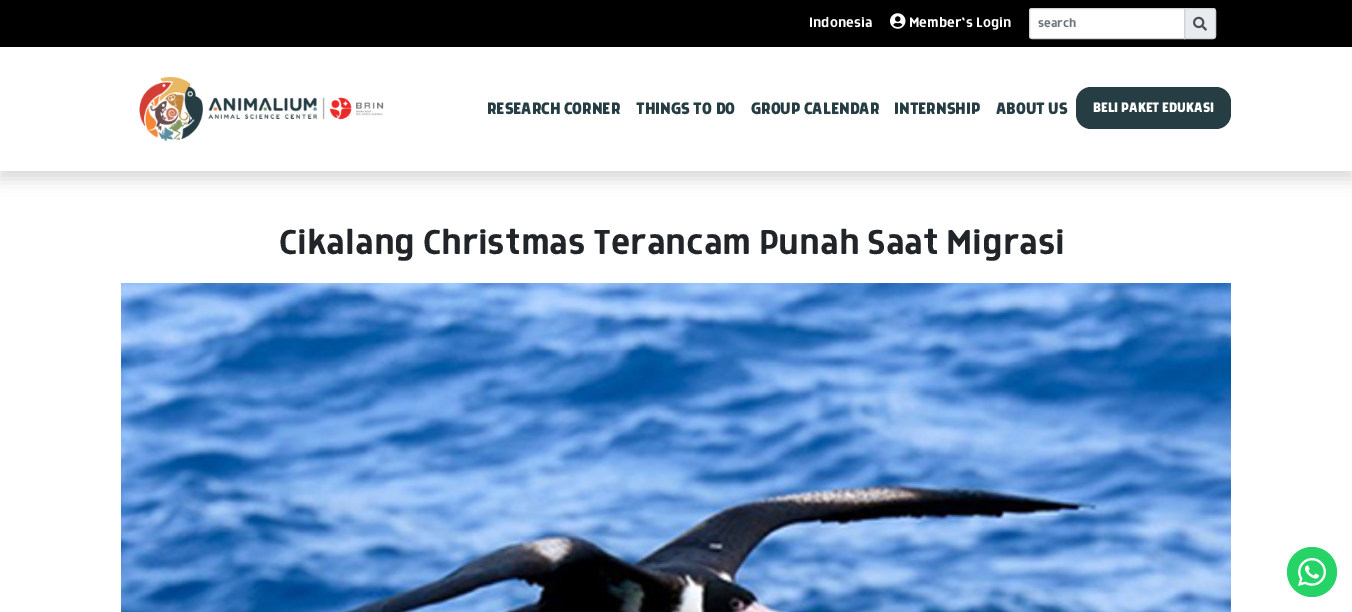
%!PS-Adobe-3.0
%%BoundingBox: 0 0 1352 612
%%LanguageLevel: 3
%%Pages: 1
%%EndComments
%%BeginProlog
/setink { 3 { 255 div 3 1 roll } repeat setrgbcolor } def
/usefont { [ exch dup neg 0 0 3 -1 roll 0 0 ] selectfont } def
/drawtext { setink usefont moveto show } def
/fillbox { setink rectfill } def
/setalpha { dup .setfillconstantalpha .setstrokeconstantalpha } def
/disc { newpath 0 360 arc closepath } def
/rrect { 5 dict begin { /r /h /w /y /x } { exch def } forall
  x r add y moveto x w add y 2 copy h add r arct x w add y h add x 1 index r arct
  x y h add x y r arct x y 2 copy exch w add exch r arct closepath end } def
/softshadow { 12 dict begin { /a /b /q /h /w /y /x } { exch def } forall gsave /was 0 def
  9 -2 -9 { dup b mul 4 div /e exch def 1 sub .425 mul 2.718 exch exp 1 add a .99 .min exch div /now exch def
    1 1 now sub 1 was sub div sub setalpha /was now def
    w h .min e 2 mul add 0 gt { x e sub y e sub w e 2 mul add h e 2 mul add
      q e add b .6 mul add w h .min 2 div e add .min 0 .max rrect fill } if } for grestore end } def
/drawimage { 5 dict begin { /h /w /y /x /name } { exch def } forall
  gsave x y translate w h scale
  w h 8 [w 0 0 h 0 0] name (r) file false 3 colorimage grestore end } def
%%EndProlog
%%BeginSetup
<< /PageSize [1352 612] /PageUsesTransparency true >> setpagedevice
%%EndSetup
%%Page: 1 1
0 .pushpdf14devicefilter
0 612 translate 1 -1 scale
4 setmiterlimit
0 0 1352 612 255 255 255 fillbox
0 0 1352 47 0 0 0 fillbox
(Indonesia) 809 27 /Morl-Regular 16 255 255 255 drawtext
(assets/img1.rgb) 890 13 16 16 drawimage
(Member`s Login) 909 27 /Morl-Regular 16 255 255 255 drawtext
233 236 239 setink
1184.5 8.5 moveto 1213 8.5 lineto 1214.5 8.5 1215.5 9.5 1215.5 11 curveto 1215.5 36 lineto 1215.5 37.5 1214.5 38.5 1213 38.5 curveto 1184.5 38.5 lineto closepath gsave fill grestore
206 212 218 setink
stroke
255 255 255 setink
1032 8.5 moveto 1184.5 8.5 lineto 1184.5 38.5 lineto 1032 38.5 lineto 1030.5 38.5 1029.5 37.5 1029.5 36 curveto 1029.5 11 lineto 1029.5 9.5 1030.5 8.5 1032 8.5 curveto closepath gsave fill grestore
206 212 218 setink
stroke
(search) 1038 27 /Morl-Regular 14 108 117 125 drawtext
(assets/img2.rgb) 1193 16 14 15 drawimage
gsave
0 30 moveto 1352 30 lineto 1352 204 lineto 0 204 lineto closepath 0 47 moveto 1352 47 lineto 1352 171 lineto 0 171 lineto closepath eoclip newpath
0 0 0 setink
0 55 1352 124 0 8 0.15 softshadow
grestore
(assets/img3.rgb) 139 76 245 66 drawimage
(RESEARCH CORNER) 487 114 /Morl-Bold 19.25 37 61 67 drawtext
(THINGS TO DO) 636 114 /Morl-Bold 19.25 37 61 67 drawtext
(GROUP CALENDAR) 751 114 /Morl-Bold 19.25 37 61 67 drawtext
(INTERNSHIP) 894 114 /Morl-Bold 19.25 37 61 67 drawtext
(ABOUT US) 996 114 /Morl-Bold 19.25 37 61 67 drawtext
1076 87 155 42 15 rrect fill
(BELI PAKET EDUKASI) 1093 112 /Morl-Bold 16 255 255 255 drawtext
(Cikalang Christmas Terancam Punah Saat Migrasi) 279 254 /Morl-Regular 40 33 37 41 drawtext
(assets/img4.rgb) 121 283 1110 329 drawimage
37 211 102 setink
1312 572 25 disc fill
(assets/img5.rgb) 1298 558 28 28 drawimage
.poppdf14devicefilter showpage
%%EOF
